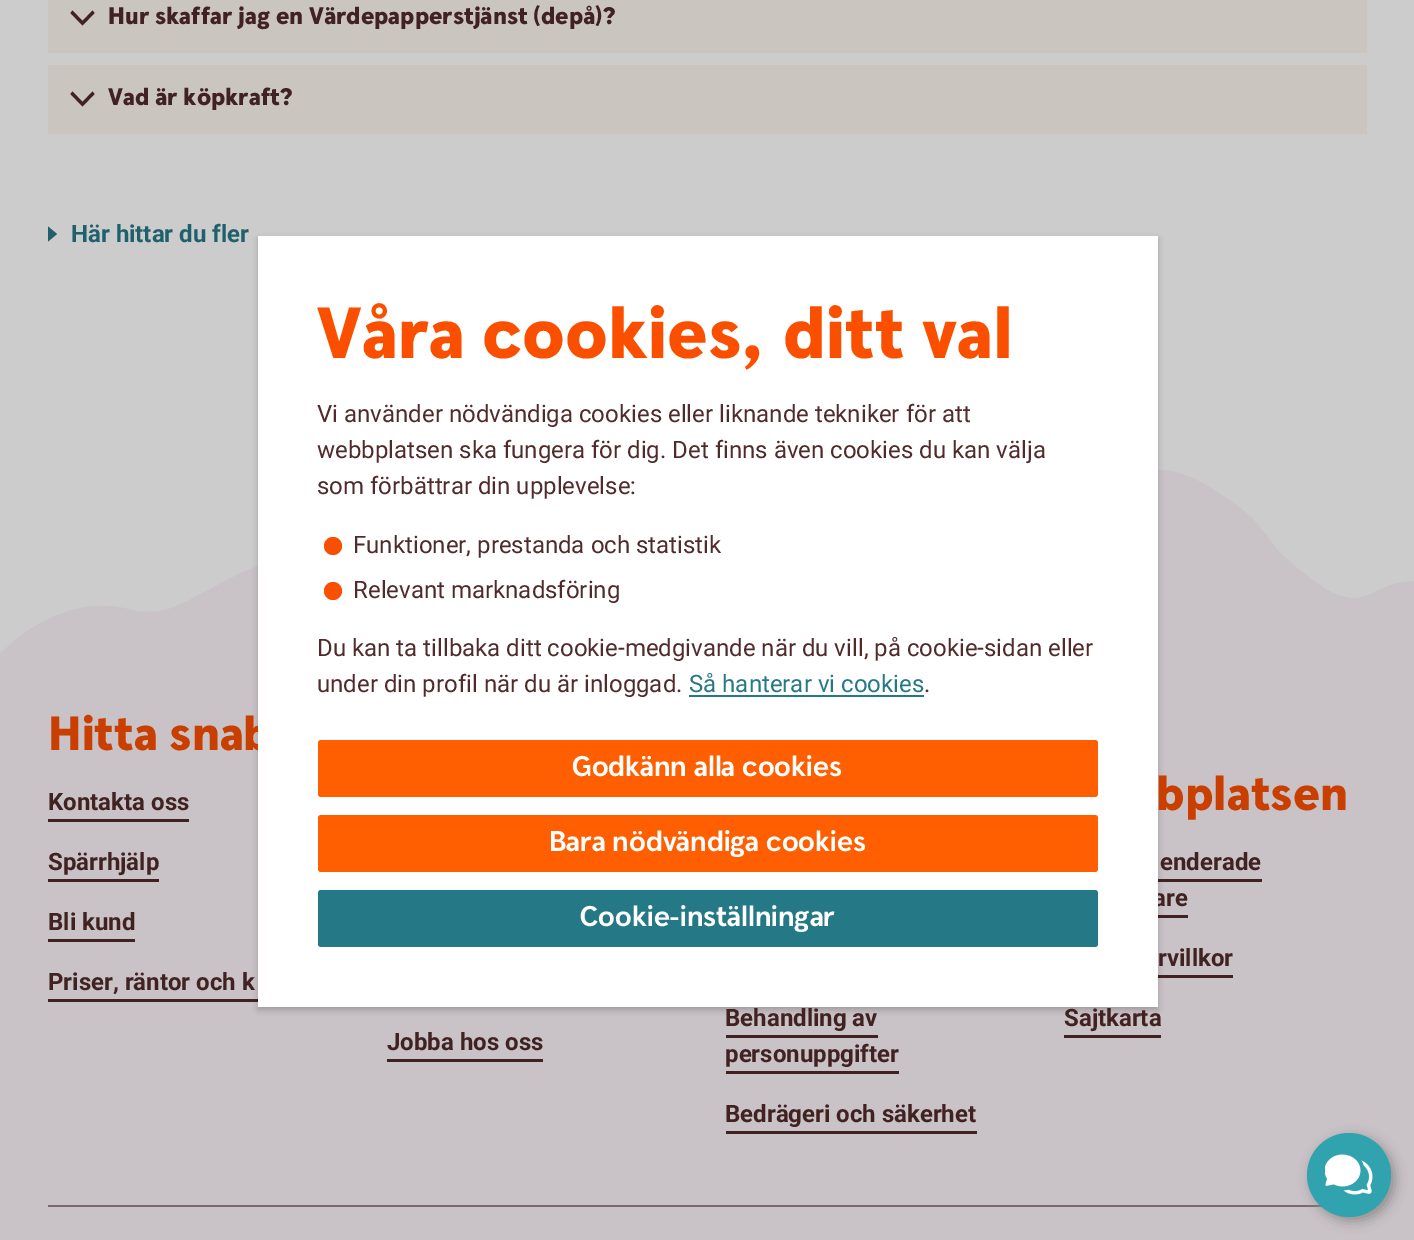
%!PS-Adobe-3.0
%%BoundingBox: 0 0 1414 1240
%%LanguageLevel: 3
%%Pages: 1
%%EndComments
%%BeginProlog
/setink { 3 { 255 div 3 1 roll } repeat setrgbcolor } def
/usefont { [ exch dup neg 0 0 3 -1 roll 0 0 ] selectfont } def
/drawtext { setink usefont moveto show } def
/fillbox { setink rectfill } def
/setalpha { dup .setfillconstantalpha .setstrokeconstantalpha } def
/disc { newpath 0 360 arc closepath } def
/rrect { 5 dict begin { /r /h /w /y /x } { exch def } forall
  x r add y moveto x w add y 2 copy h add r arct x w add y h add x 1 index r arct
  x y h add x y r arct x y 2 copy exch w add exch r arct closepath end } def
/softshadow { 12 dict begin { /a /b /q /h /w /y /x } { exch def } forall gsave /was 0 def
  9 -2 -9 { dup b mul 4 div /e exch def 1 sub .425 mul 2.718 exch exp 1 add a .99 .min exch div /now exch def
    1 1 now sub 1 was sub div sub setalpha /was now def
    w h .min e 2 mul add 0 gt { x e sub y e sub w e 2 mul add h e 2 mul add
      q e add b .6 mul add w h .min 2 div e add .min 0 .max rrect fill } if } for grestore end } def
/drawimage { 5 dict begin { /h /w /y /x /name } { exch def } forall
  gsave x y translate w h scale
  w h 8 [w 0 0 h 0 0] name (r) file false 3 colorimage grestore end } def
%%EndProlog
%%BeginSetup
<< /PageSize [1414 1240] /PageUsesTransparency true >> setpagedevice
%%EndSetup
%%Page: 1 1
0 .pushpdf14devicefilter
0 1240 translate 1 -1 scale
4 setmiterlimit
0 0 1414 1240 204 204 204 fillbox
48 0 1319 53 202 197 190 fillbox
65 34 34 setink
82.5 25.5 moveto 70.5 13 lineto 72.5 10.5 lineto 82.5 21 lineto 92.5 10.5 lineto 94.5 13 lineto closepath fill
(Hur skaffar jag en Värdepapperstjänst \(depå\)?) 108 24 /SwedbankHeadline-Black 24 65 34 34 drawtext
48 65 1319 69 202 197 190 fillbox
65 34 34 setink
82.5 106.5 moveto 70.5 94 lineto 72.5 91.5 lineto 82.5 102 lineto 92.5 91.5 lineto 94.5 94 lineto closepath fill
(Vad är köpkraft?) 108 105 /SwedbankHeadline-Black 24 65 34 34 drawtext
30 96 107 setink
57 234 moveto 48 241.5 lineto 48 226.5 lineto closepath fill
(Här hittar du fler) 71 242 /Roboto-Bold 24 30 96 107 drawtext
(assets/img1.rgb) 0 470 1414 189 drawimage
0 659 1414 581 201 194 198 fillbox
48 999 210 3 65 34 34 fillbox
1158 879 104 3 65 34 34 fillbox
1158 915 30 3 65 34 34 fillbox
1158 975 75 3 65 34 34 fillbox
0 0 0 setink
258 239 900 771 0 3 0.2 softshadow
(Hitta snab) 48 750 /SwedbankHeadline-Black 48 201 63 0 drawtext
(are) 1153 906 /Roboto-Bold 24 65 34 34 drawtext
258 236 900 771 255 255 255 fillbox
(Våra cookies, ditt val) 317 358 /SwedbankHeadline-Black 72 251 79 0 drawtext
(Vi använder nödvändiga cookies eller liknande tekniker för att) 317 422 /Roboto-Regular 24 81 43 43 drawtext
(webbplatsen ska fungera för dig. Det finns även cookies du kan välja) 317 458 /Roboto-Regular 24 81 43 43 drawtext
(som förbättrar din upplevelse:) 317 494 /Roboto-Regular 24 81 43 43 drawtext
251 79 0 setink
333 546 9 disc fill
(Funktioner, prestanda och statistik) 353 553 /Roboto-Regular 24 81 43 43 drawtext
251 79 0 setink
333 591 9 disc fill
(Relevant marknadsföring) 353 598 /Roboto-Regular 24 81 43 43 drawtext
(Du kan ta tillbaka ditt cookie-medgivande när du vill, på cookie-sidan eller) 317 656 /Roboto-Regular 24 81 43 43 drawtext
(under din profil när du är inloggad.) 317 692 /Roboto-Regular 24 81 43 43 drawtext
(Så hanterar vi cookies) 689 692 /Roboto-Regular 24 37 120 134 drawtext
689 695 235 2 37 120 134 fillbox
(.) 924 692 /Roboto-Regular 24 81 43 43 drawtext
255 95 0 setink
318 740 780 57 3 rrect fill
(Godkänn alla cookies) 572 776 /SwedbankHeadline-Bold 28.5 255 255 255 drawtext
255 95 0 setink
318 815 780 57 3 rrect fill
(Bara nödvändiga cookies) 549 851 /SwedbankHeadline-Bold 28.5 255 255 255 drawtext
37 120 134 setink
318 890 780 57 3 rrect fill
(Cookie-inställningar) 580 926 /SwedbankHeadline-Bold 28.5 255 255 255 drawtext
(Kontakta oss) 48 810 /Roboto-Bold 24 65 34 34 drawtext
48 819 141 3 65 34 34 fillbox
(Spärrhjälp) 48 870 /Roboto-Bold 24 65 34 34 drawtext
48 879 111 3 65 34 34 fillbox
(Bli kund) 48 930 /Roboto-Bold 24 65 34 34 drawtext
48 939 87 3 65 34 34 fillbox
(Priser, räntor och k) 48 990 /Roboto-Bold 24 65 34 34 drawtext
(bplatsen) 1156 810 /SwedbankHeadline-Black 48 201 63 0 drawtext
(enderade) 1160 870 /Roboto-Bold 24 65 34 34 drawtext
(rvillkor) 1158 966 /Roboto-Bold 24 65 34 34 drawtext
(Sajtkarta) 1064 1026 /Roboto-Bold 24 65 34 34 drawtext
1064 1035 97 3 65 34 34 fillbox
(Jobba hos oss) 387 1050 /Roboto-Bold 24 65 34 34 drawtext
387 1059 156 3 65 34 34 fillbox
(Behandling av) 725 1026 /Roboto-Bold 24 65 34 34 drawtext
726 1035 152 3 65 34 34 fillbox
(personuppgifter) 725 1062 /Roboto-Bold 24 65 34 34 drawtext
726 1071 173 3 65 34 34 fillbox
(Bedrägeri och säkerhet) 725 1122 /Roboto-Bold 24 65 34 34 drawtext
726 1131 251 3 65 34 34 fillbox
48 1205 1274 2 125 105 106 fillbox
144 142 142 setink
1311 1137 84 84 42 6 1 softshadow
49 163 174 setink
1349 1175 42 disc fill
(assets/img2.rgb) 1325 1154 48 41 drawimage
.poppdf14devicefilter showpage
%%EOF
